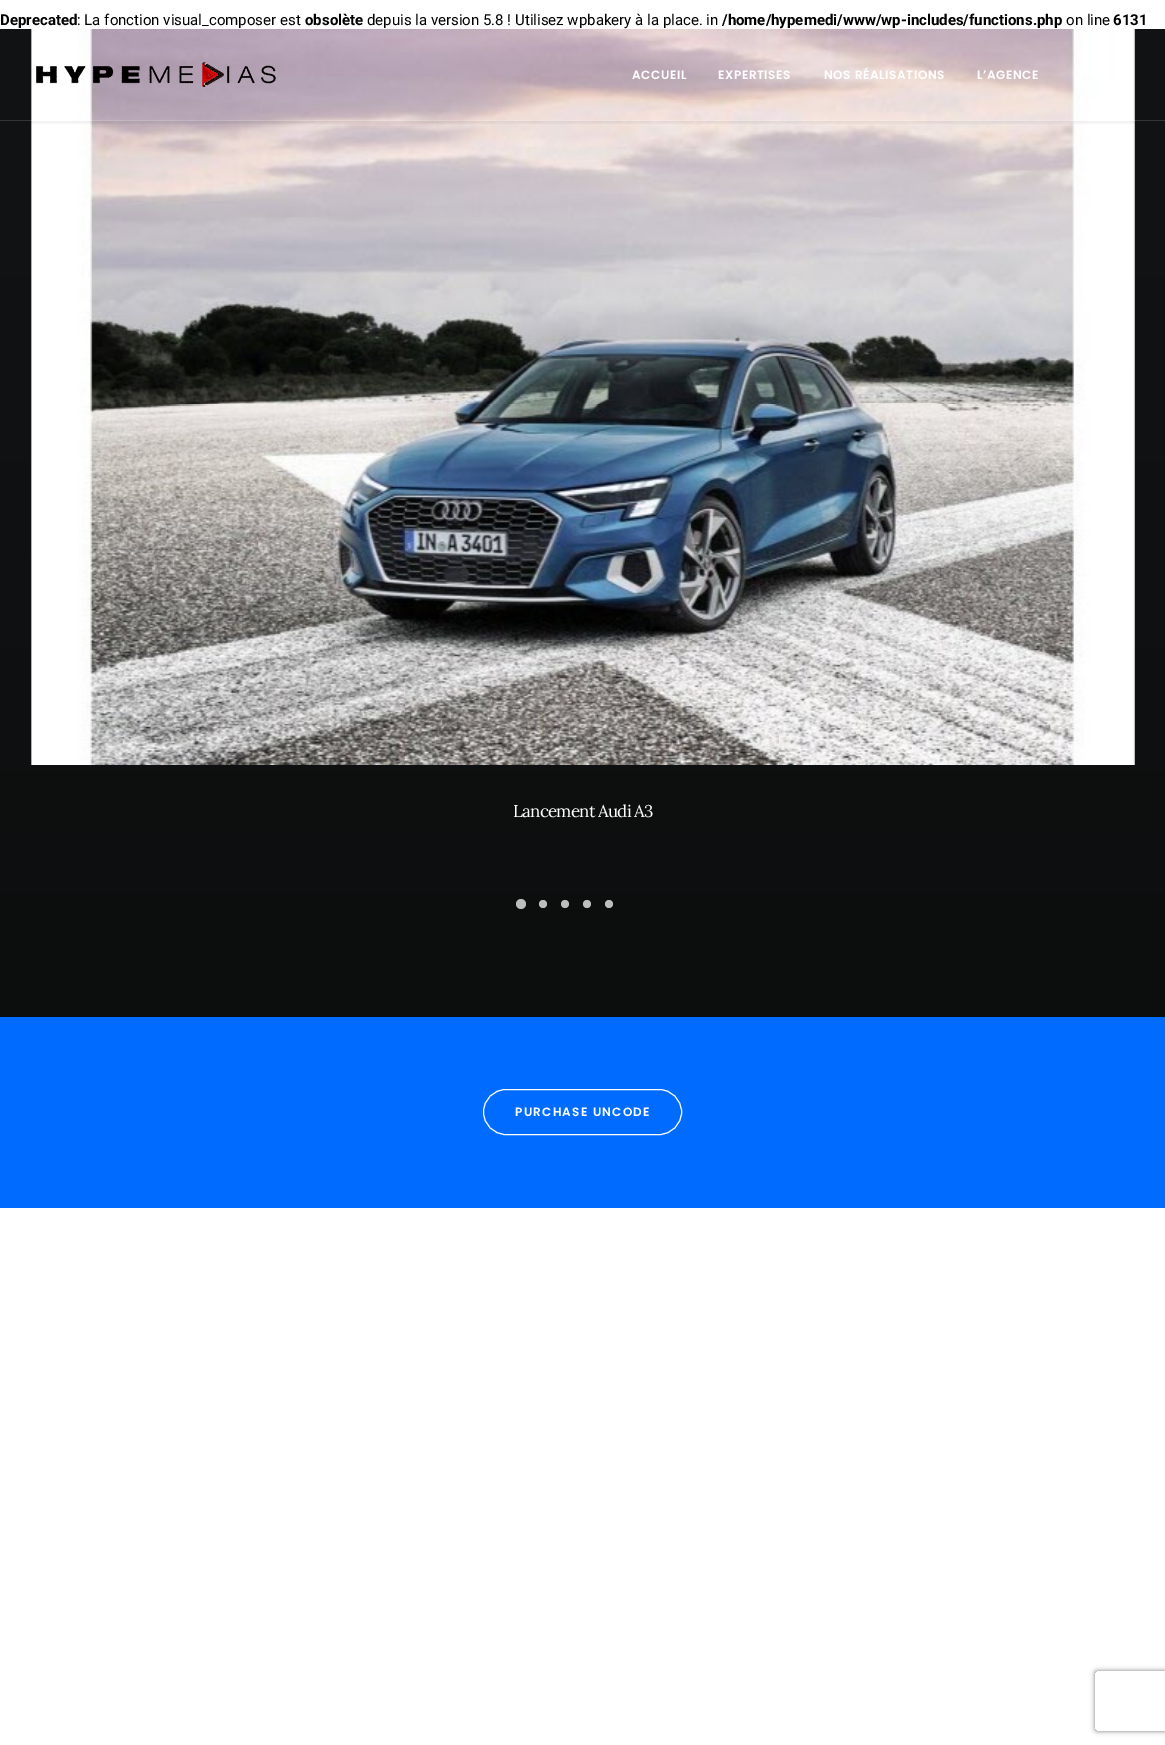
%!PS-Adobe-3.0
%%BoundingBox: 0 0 1165 1745
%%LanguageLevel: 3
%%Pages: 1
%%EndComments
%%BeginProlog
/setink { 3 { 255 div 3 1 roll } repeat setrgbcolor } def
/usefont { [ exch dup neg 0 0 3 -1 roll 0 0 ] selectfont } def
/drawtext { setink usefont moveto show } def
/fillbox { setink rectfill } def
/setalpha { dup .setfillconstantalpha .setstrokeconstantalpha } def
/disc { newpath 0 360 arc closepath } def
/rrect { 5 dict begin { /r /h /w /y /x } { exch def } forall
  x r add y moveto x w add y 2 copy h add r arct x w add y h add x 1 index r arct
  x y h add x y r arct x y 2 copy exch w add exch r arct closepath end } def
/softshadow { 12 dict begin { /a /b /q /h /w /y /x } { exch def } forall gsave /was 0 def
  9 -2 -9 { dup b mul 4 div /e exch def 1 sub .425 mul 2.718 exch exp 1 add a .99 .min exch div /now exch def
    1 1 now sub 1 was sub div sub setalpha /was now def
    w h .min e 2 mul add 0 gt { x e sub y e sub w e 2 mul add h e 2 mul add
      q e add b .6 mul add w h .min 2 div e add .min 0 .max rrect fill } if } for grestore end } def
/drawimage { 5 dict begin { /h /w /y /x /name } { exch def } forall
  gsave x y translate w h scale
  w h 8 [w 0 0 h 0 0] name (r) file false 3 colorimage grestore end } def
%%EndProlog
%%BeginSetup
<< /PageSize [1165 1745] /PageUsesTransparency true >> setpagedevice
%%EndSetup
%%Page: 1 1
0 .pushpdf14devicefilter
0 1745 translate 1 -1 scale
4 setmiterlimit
0 0 1165 1745 255 255 255 fillbox
(Deprecated) 0 25 /Roboto-Bold 15 0 0 0 drawtext
(: La fonction visual_composer est) 77 25 /Roboto-Regular 15 0 0 0 drawtext
(obsolète) 305 25 /Roboto-Bold 15 0 0 0 drawtext
(depuis la version 5.8 ! Utilisez wpbakery à la place. in) 367 25 /Roboto-Regular 15 0 0 0 drawtext
(/home/hypemedi/www/wp-includes/functions.php) 722 25 /Roboto-Bold 15 0 0 0 drawtext
(on line) 1066 25 /Roboto-Regular 15 0 0 0 drawtext
(6131) 1113 25 /Roboto-Bold 15 0 0 0 drawtext
0 29 1165 248 16 18 19 fillbox
gsave 0 277 moveto 1165 277 lineto 1165 1017 lineto 0 1017 lineto closepath clip newpath
<< /ShadingType 2 /ColorSpace /DeviceRGB /Coords [583 277 583 1018] /Extend [true true] /Function << /FunctionType 2 /Domain [0 1] /C0 [0.063 0.071 0.075] /C1 [0.047 0.055 0.055] /N 1 >> >> shfill grestore
(assets/img2.rgb) 31 29 1104 736 drawimage
gsave
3 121 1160 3 rectclip
0 0 0 setink
5 43 1156 72 0 5 0.6 softshadow
grestore
0.15 setalpha
0 120 1165 1 255 255 255 fillbox
1 setalpha
(assets/img1.rgb) 36 62 240 25 drawimage
/Poppins-SemiBold 12 usefont
632 79 moveto 0.6 0 (ACCUEIL) ashow
718 79 moveto 0.6 0 (EXPERTISES) ashow
824 79 moveto 0.6 0 (NOS RÉALISATIONS) ashow
977 79 moveto 0.6 0 (L’AGENCE) ashow
/Lora-Regular 17 usefont
513 817 moveto -0.8 0 (Lancement Audi A3) ashow
188 189 189 setink
521 904 5 disc fill
543 904 4 disc fill
565 904 4 disc fill
587 904 4 disc fill
609 904 4 disc fill
0 1017 1165 191 0 108 255 fillbox
255 255 255 setink
483.5 1089.5 198 45 22.5 rrect stroke
/Poppins-SemiBold 12 usefont
515 1116 moveto 1.25 0 (PURCHASE UNCODE) ashow
gsave
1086 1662 moveto 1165 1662 lineto 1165 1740 lineto 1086 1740 lineto closepath 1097 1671 moveto 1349 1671 lineto 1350 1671 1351 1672 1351 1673 curveto 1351 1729 lineto 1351 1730 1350 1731 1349 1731 curveto 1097 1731 lineto 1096 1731 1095 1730 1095 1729 curveto 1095 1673 lineto 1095 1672 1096 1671 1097 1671 curveto closepath eoclip newpath
128 128 128 setink
1095 1671 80 60 2 2.5 1 softshadow
grestore
.poppdf14devicefilter showpage
%%EOF
